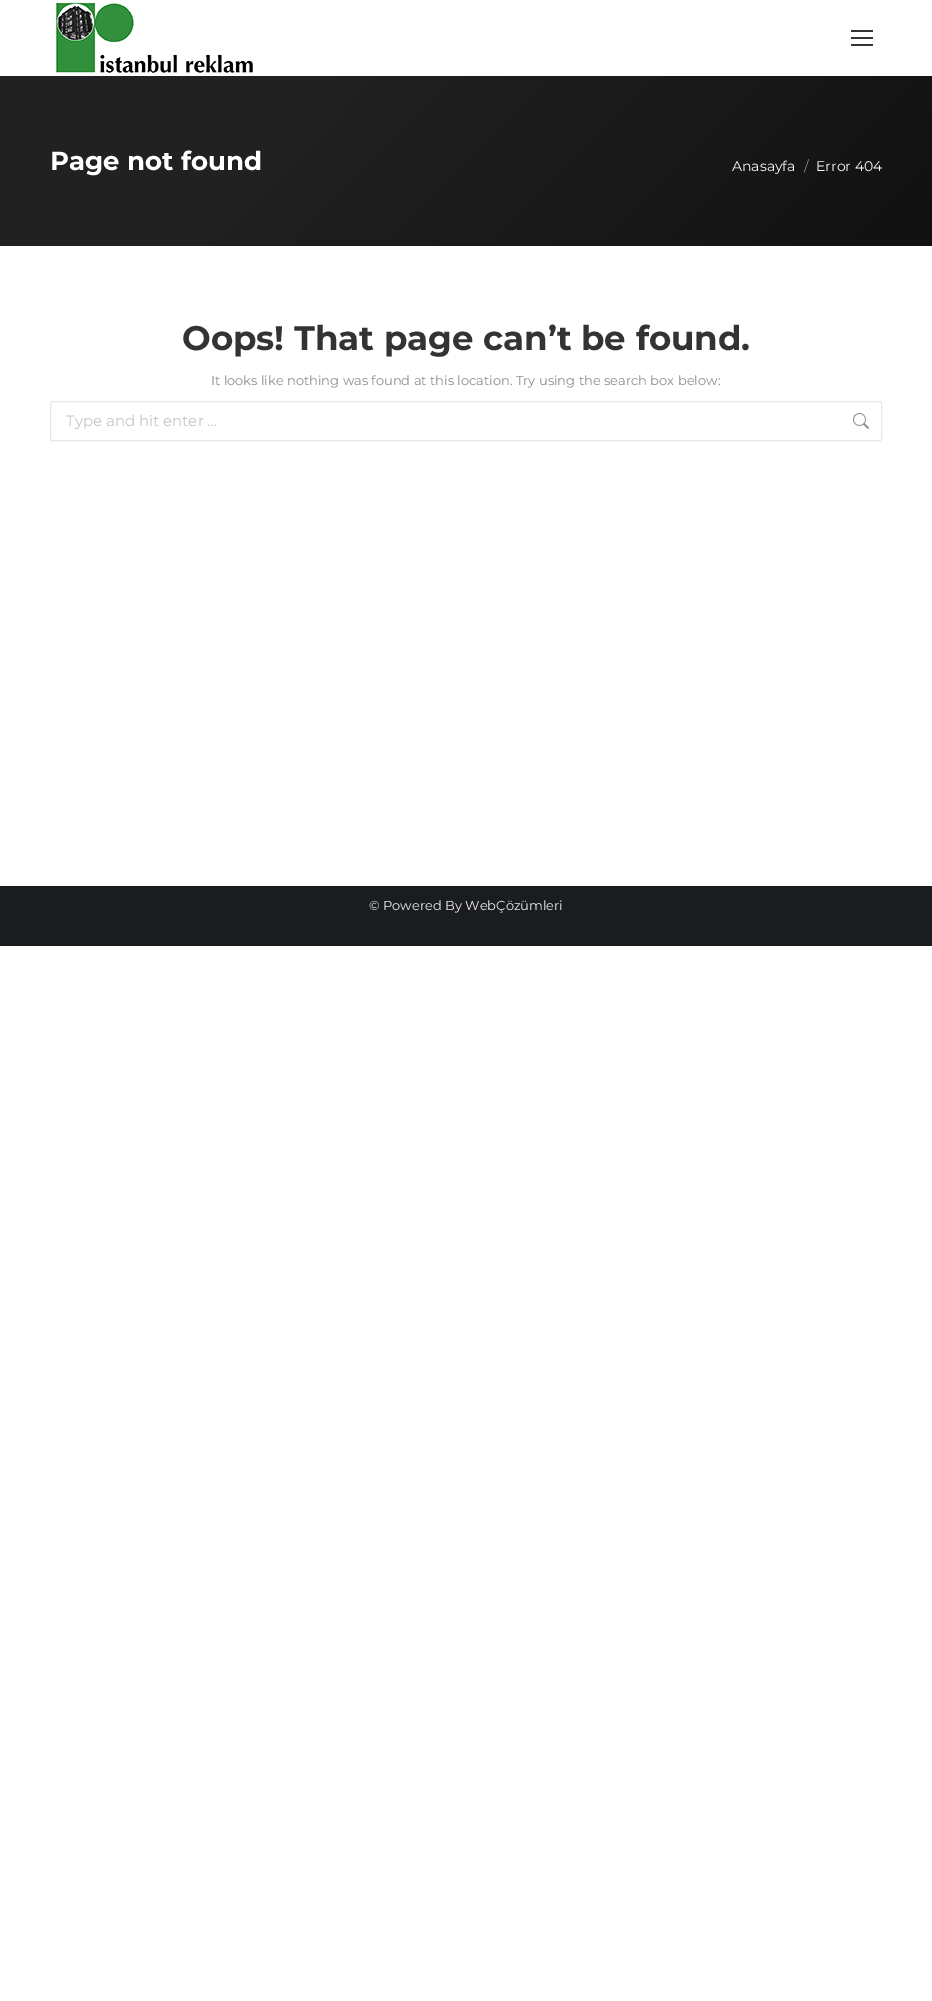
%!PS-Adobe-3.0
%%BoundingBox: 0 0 932 2001
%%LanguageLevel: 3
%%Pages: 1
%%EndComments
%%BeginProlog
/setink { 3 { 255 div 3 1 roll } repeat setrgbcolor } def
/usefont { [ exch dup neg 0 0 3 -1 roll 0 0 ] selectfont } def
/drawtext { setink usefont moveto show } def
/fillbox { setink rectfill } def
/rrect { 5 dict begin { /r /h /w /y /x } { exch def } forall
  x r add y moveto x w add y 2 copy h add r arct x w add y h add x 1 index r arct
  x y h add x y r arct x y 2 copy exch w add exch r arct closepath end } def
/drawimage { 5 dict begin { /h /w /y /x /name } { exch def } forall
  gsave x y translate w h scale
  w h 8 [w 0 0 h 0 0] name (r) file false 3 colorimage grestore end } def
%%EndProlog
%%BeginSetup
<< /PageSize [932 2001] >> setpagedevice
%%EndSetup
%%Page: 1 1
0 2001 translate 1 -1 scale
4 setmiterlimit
0 0 932 2001 255 255 255 fillbox
(assets/img1.rgb) 56 2 197 71 drawimage
851 30 22 2 51 51 51 fillbox
851 37 22 2 51 51 51 fillbox
851 44 22 2 51 51 51 fillbox
gsave 0 76 moveto 932 76 lineto 932 246 lineto 0 246 lineto closepath clip newpath
<< /ShadingType 2 /ColorSpace /DeviceRGB /Coords [190 -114 742 437] /Extend [true true] /Function << /FunctionType 3 /Domain [0 1] /Functions [<< /FunctionType 2 /Domain [0 1] /C0 [0.129 0.129 0.129] /C1 [0.129 0.129 0.129] /N 1 >> << /FunctionType 2 /Domain [0 1] /C0 [0.129 0.129 0.129] /C1 [0.067 0.067 0.067] /N 1 >>] /Bounds [0.3] /Encode [0 1 0 1] >> >> shfill grestore
(Page not found) 50 170 /Montserrat-Bold 26 255 255 255 drawtext
(Anasayfa) 732 171 /Montserrat-Regular 14 255 247 247 drawtext
(/) 804 171 /Montserrat-Regular 14 138 134 134 drawtext
(Error 404) 816 171 /Montserrat-Regular 14 255 247 247 drawtext
(Oops! That page can’t be found.) 182 350 /Montserrat-Bold 34 51 51 51 drawtext
(It looks like nothing was found at this location. Try using the search box below:) 211 385 /Montserrat-Regular 13 139 141 148 drawtext
231 231 231 setink
50.5 401.5 831 39 1.5 rrect stroke
(Type and hit enter …) 66 426 /Montserrat-Regular 15 196 197 201 drawtext
(assets/img2.rgb) 853 413 16 16 drawimage
0 886 932 60 26 28 32 fillbox
(© Powered By WebÇözümleri) 369 910 /Montserrat-Regular 13 238 238 238 drawtext
showpage
%%EOF
